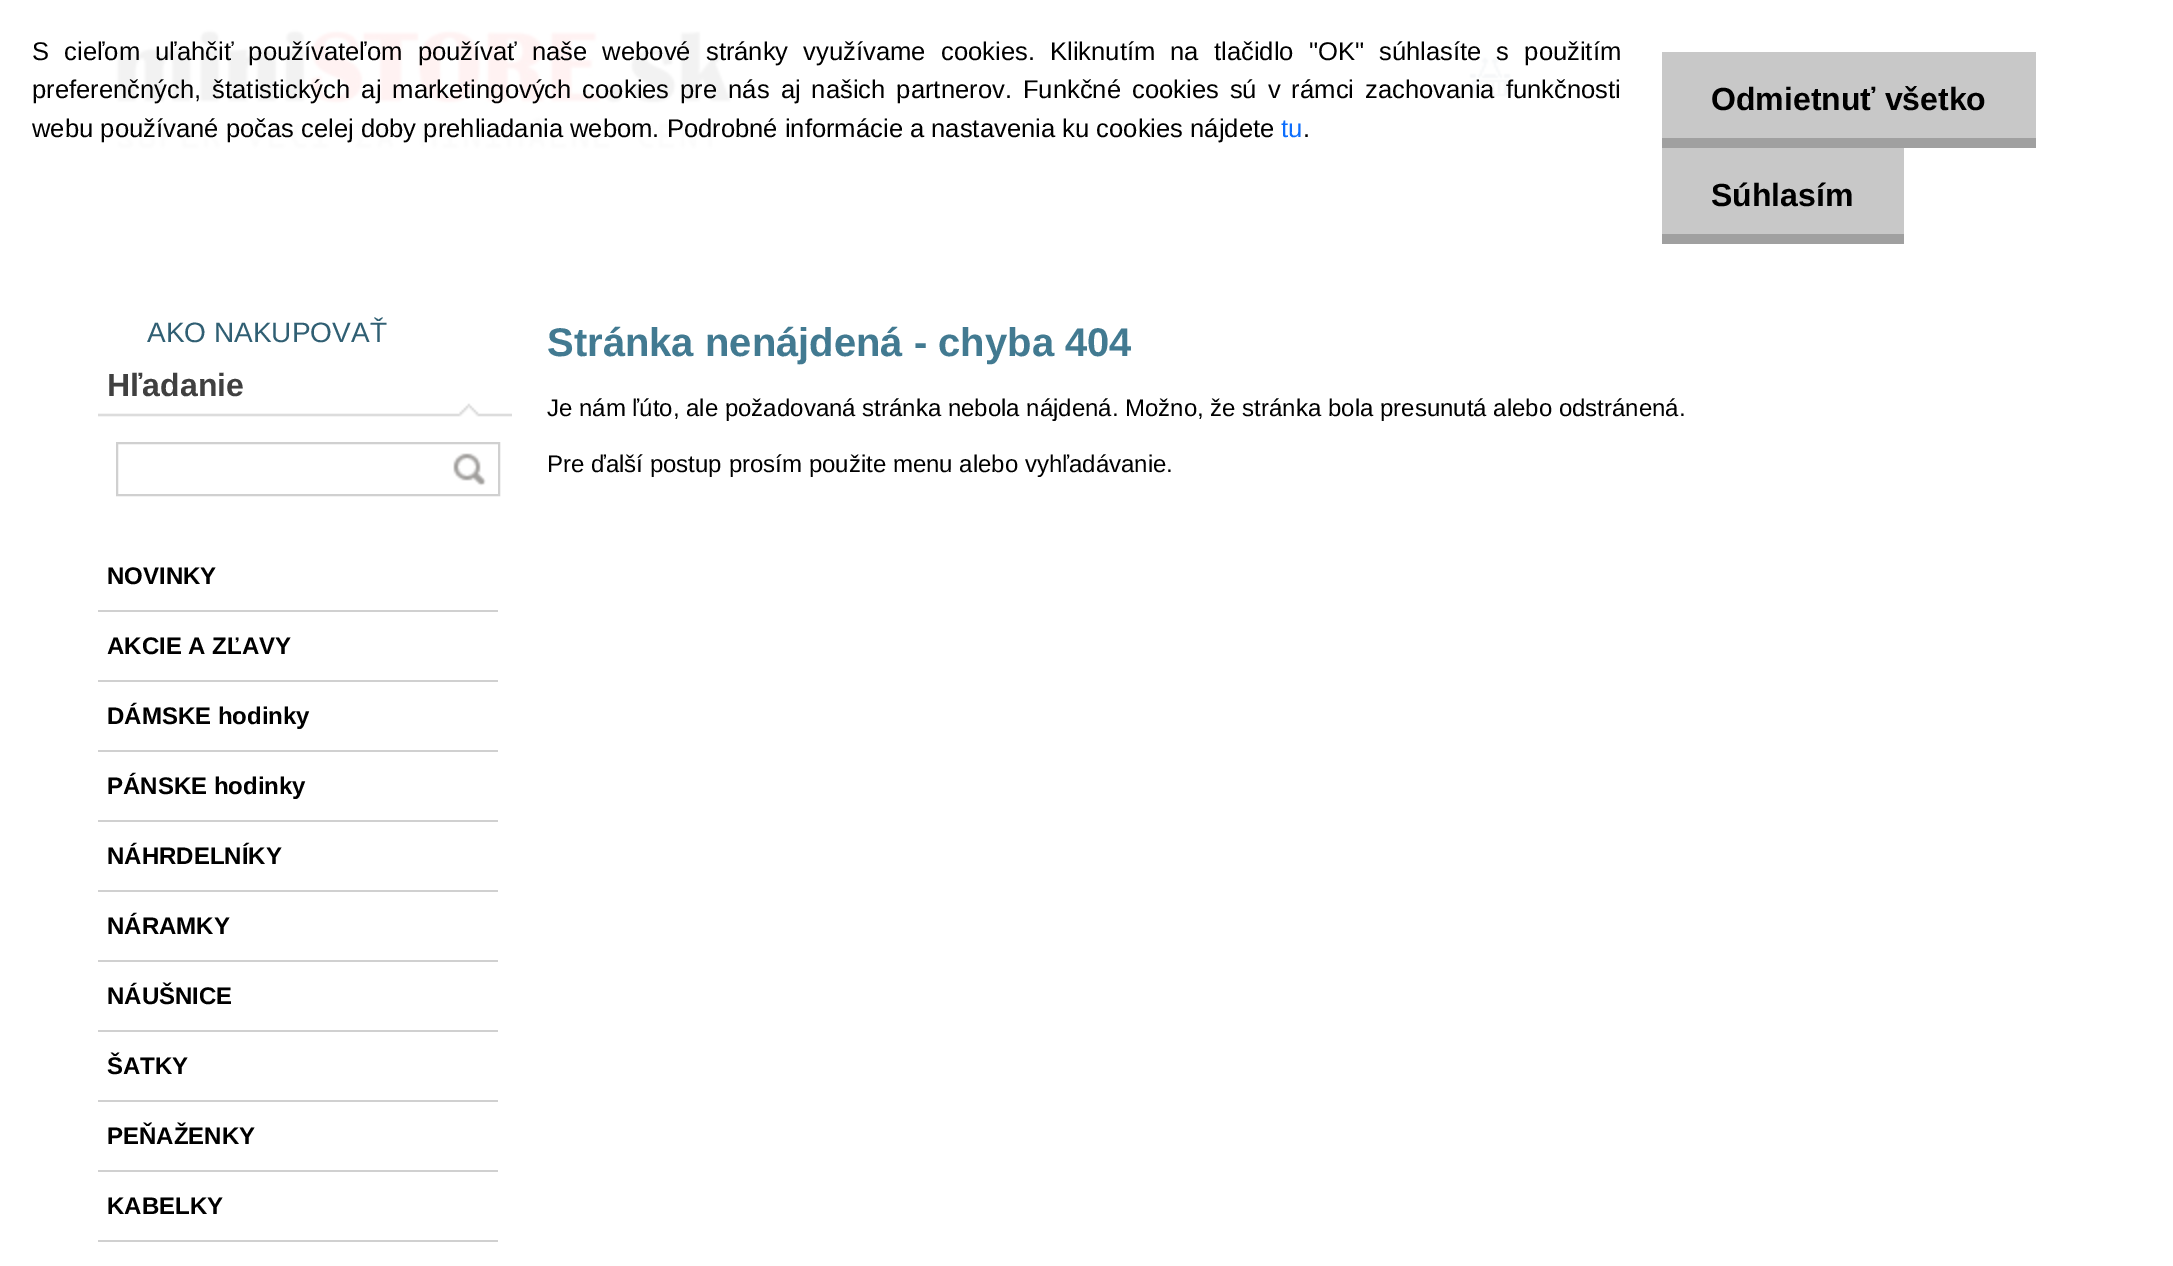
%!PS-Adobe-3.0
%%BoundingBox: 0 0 2173 1266
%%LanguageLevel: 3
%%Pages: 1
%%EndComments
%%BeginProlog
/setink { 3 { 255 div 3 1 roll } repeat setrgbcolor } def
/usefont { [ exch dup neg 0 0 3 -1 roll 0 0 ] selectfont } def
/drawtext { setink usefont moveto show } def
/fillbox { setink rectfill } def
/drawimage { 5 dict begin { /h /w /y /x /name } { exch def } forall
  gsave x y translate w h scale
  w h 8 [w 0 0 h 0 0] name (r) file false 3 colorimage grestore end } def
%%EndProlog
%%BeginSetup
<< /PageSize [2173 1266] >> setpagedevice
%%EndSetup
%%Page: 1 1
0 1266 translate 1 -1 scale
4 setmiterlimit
0 0 2173 1266 255 255 255 fillbox
(assets/img1.rgb) 115 28 623 132 drawimage
(assets/img2.rgb) 1469 57 42 40 drawimage
/LiberationSans-Regular 25.6 usefont
0 0 0 setink
32 60 moveto 8 0 32 (S cieľom uľahčiť používateľom používať naše webové stránky využívame cookies. Kliknutím na tlačidlo "OK" súhlasíte s použitím) widthshow
32 98 moveto 3.9 0 32 (preferenčných, štatistických aj marketingových cookies pre nás aj našich partnerov. Funkčné cookies sú v rámci zachovania funkčnosti) widthshow
(webu používané počas celej doby prehliadania webom. Podrobné informácie a nastavenia ku cookies nájdete) 32 137 /LiberationSans-Regular 25.6 0 0 0 drawtext
(tu) 1281 137 /LiberationSans-Regular 25.6 13 110 253 drawtext
(.) 1303 137 /LiberationSans-Regular 25.6 0 0 0 drawtext
1662 52 374 86 200 200 200 fillbox
1662 138 374 10 160 160 160 fillbox
(Odmietnuť všetko) 1711 110 /LiberationSans-Bold 32 0 0 0 drawtext
1662 148 242 86 200 200 200 fillbox
1662 234 242 10 160 160 160 fillbox
(Súhlasím) 1711 206 /LiberationSans-Bold 32 0 0 0 drawtext
(AKO NAKUPOVAŤ) 147 342 /LiberationSans-Regular 28 48 95 115 drawtext
(assets/img3.rgb) 98 403 414 14 drawimage
(Hľadanie) 107 396 /LiberationSans-Bold 32 64 64 64 drawtext
208 208 208 setink
2 setlinewidth
117 443 382 52 rectstroke
(assets/img4.rgb) 453 453 33 33 drawimage
98 610 400 2 208 208 208 fillbox
(NOVINKY) 107 584 /LiberationSans-Bold 24 0 0 0 drawtext
98 680 400 2 208 208 208 fillbox
(AKCIE A ZĽAVY) 107 654 /LiberationSans-Bold 24 0 0 0 drawtext
98 750 400 2 208 208 208 fillbox
(DÁMSKE hodinky) 107 724 /LiberationSans-Bold 24 0 0 0 drawtext
98 820 400 2 208 208 208 fillbox
(PÁNSKE hodinky) 107 794 /LiberationSans-Bold 24 0 0 0 drawtext
98 890 400 2 208 208 208 fillbox
(NÁHRDELNÍKY) 107 864 /LiberationSans-Bold 24 0 0 0 drawtext
98 960 400 2 208 208 208 fillbox
(NÁRAMKY) 107 934 /LiberationSans-Bold 24 0 0 0 drawtext
98 1030 400 2 208 208 208 fillbox
(NÁUŠNICE) 107 1004 /LiberationSans-Bold 24 0 0 0 drawtext
98 1100 400 2 208 208 208 fillbox
(ŠATKY) 107 1074 /LiberationSans-Bold 24 0 0 0 drawtext
98 1170 400 2 208 208 208 fillbox
(PEŇAŽENKY) 107 1144 /LiberationSans-Bold 24 0 0 0 drawtext
98 1240 400 2 208 208 208 fillbox
(KABELKY) 107 1214 /LiberationSans-Bold 24 0 0 0 drawtext
(Stránka nenájdená - chyba 404) 547 356 /LiberationSans-Bold 40 66 122 145 drawtext
(Je nám ľúto, ale požadovaná stránka nebola nájdená. Možno, že stránka bola presunutá alebo odstránená.) 547 416 /LiberationSans-Regular 24 0 0 0 drawtext
(Pre ďalší postup prosím použite menu alebo vyhľadávanie.) 547 472 /LiberationSans-Regular 24 0 0 0 drawtext
showpage
%%EOF
